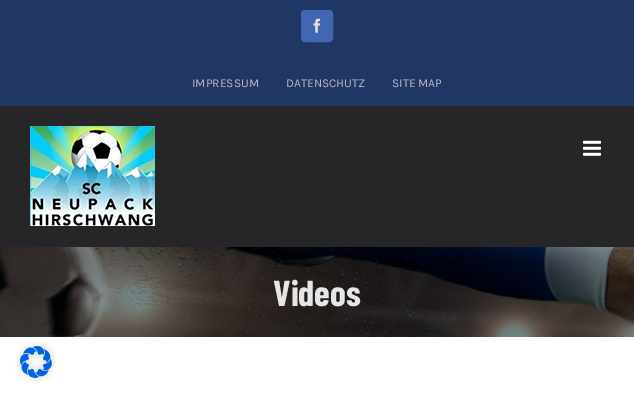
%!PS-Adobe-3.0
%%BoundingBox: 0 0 634 398
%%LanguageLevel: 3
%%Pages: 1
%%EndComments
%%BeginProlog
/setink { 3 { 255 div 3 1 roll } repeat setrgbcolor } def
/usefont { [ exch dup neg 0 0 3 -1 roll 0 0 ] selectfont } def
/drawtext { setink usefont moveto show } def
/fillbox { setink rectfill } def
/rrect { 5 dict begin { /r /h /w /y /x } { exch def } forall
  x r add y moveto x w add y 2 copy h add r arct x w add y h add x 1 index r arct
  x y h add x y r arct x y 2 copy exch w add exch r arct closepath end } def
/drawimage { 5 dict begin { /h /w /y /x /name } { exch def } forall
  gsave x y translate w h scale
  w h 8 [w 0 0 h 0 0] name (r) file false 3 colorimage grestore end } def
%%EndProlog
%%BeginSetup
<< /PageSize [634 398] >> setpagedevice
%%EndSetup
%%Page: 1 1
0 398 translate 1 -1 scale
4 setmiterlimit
0 0 634 398 255 255 255 fillbox
0 0 634 106 32 55 102 fillbox
66 103 178 setink
301.5 10.5 31 31 3.5 rrect gsave fill grestore
stroke
(assets/img1.rgb) 313 18 8 15 drawimage
(IMPRESSUM) 192 87 /Karla-Regular 12 187 183 194 drawtext
(DATENSCHUTZ) 286 87 /Karla-Regular 12 187 183 194 drawtext
(SITE MAP) 392 87 /Karla-Regular 12 187 183 194 drawtext
0 106 634 141 38 37 40 fillbox
(assets/img2.rgb) 30 126 125 100 drawimage
(assets/img3.rgb) 583 140 18 16 drawimage
(assets/img4.rgb) 0 247 634 90 drawimage
(Videos) 273 306 /BarlowCondensed-Bold 36 230 230 230 drawtext
(assets/img5.rgb) 16 342 40 40 drawimage
showpage
%%EOF
